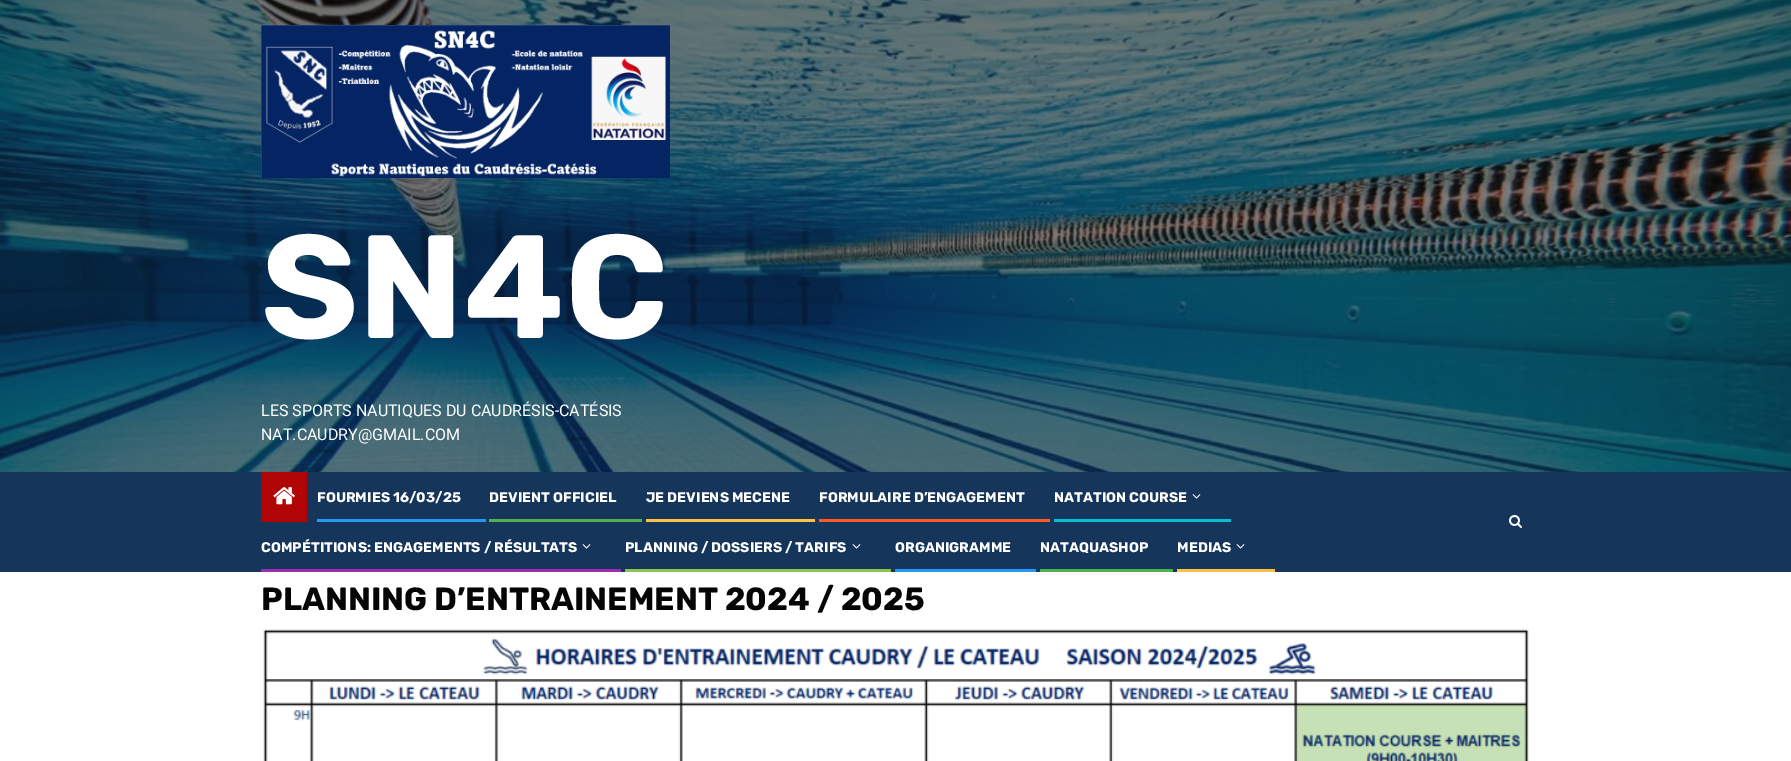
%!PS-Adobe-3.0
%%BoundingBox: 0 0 1791 761
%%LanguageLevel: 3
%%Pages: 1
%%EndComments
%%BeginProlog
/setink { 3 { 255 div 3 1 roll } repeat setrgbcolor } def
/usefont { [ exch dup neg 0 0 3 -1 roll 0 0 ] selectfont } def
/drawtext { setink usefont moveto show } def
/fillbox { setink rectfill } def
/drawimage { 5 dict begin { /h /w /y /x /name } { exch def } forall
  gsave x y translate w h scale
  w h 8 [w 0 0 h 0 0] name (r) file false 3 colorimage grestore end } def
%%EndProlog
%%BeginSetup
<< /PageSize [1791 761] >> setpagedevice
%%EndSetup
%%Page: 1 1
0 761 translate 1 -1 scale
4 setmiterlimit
0 0 1791 761 255 255 255 fillbox
(assets/img1.rgb) 0 0 1791 472 drawimage
(assets/img2.rgb) 261 25 409 153 drawimage
(SN4C) 261 338 /Rubik-Bold 147 255 255 255 drawtext
(LES SPORTS NAUTIQUES DU CAUDRÉSIS-CATÉSIS) 261 416 /Roboto-Regular 16 255 255 255 drawtext
(NAT.CAUDRY@GMAIL.COM) 261 440 /Roboto-Regular 16 255 255 255 drawtext
0 472 1791 100 21 53 91 fillbox
261 472 46 50 177 5 5 fillbox
(assets/img3.rgb) 273 487 22 18 drawimage
(FOURMIES 16/03/25) 317 502 /Rubik-Bold 14 255 255 255 drawtext
317 519 169 3 37 152 243 fillbox
(DEVIENT OFFICIEL) 489 502 /Rubik-Bold 14 255 255 255 drawtext
489 519 153 3 80 177 84 fillbox
(JE DEVIENS MECENE) 646 502 /Rubik-Bold 14 255 255 255 drawtext
646 519 169 3 255 192 67 fillbox
(FORMULAIRE D’ENGAGEMENT) 819 502 /Rubik-Bold 14 255 255 255 drawtext
819 519 231 3 255 90 38 fillbox
(NATATION COURSE) 1054 502 /Rubik-Bold 14 255 255 255 drawtext
(assets/img4.rgb) 1192 494 9 5 drawimage
1054 519 177 3 5 189 213 fillbox
(COMPÉTITIONS: ENGAGEMENTS / RÉSULTATS) 261 552 /Rubik-Bold 14 255 255 255 drawtext
(assets/img4.rgb) 582 544 9 5 drawimage
261 569 360 3 158 43 178 fillbox
(PLANNING / DOSSIERS / TARIFS) 625 552 /Rubik-Bold 14 255 255 255 drawtext
(assets/img4.rgb) 852 544 9 5 drawimage
625 569 266 3 141 196 78 fillbox
(ORGANIGRAMME) 895 552 /Rubik-Bold 14 255 255 255 drawtext
895 569 141 3 37 152 243 fillbox
(NATAQUASHOP) 1040 552 /Rubik-Bold 14 255 255 255 drawtext
1040 569 133 3 80 177 84 fillbox
(MEDIAS) 1177 552 /Rubik-Bold 14 255 255 255 drawtext
(assets/img4.rgb) 1236 544 9 5 drawimage
1177 569 98 3 255 192 67 fillbox
(assets/img5.rgb) 1509 515 13 13 drawimage
(PLANNING D’ENTRAINEMENT 2024 / 2025) 261 610 /Rubik-Bold 32 5 5 5 drawtext
(assets/img6.rgb) 263 629 1266 132 drawimage
showpage
%%EOF
